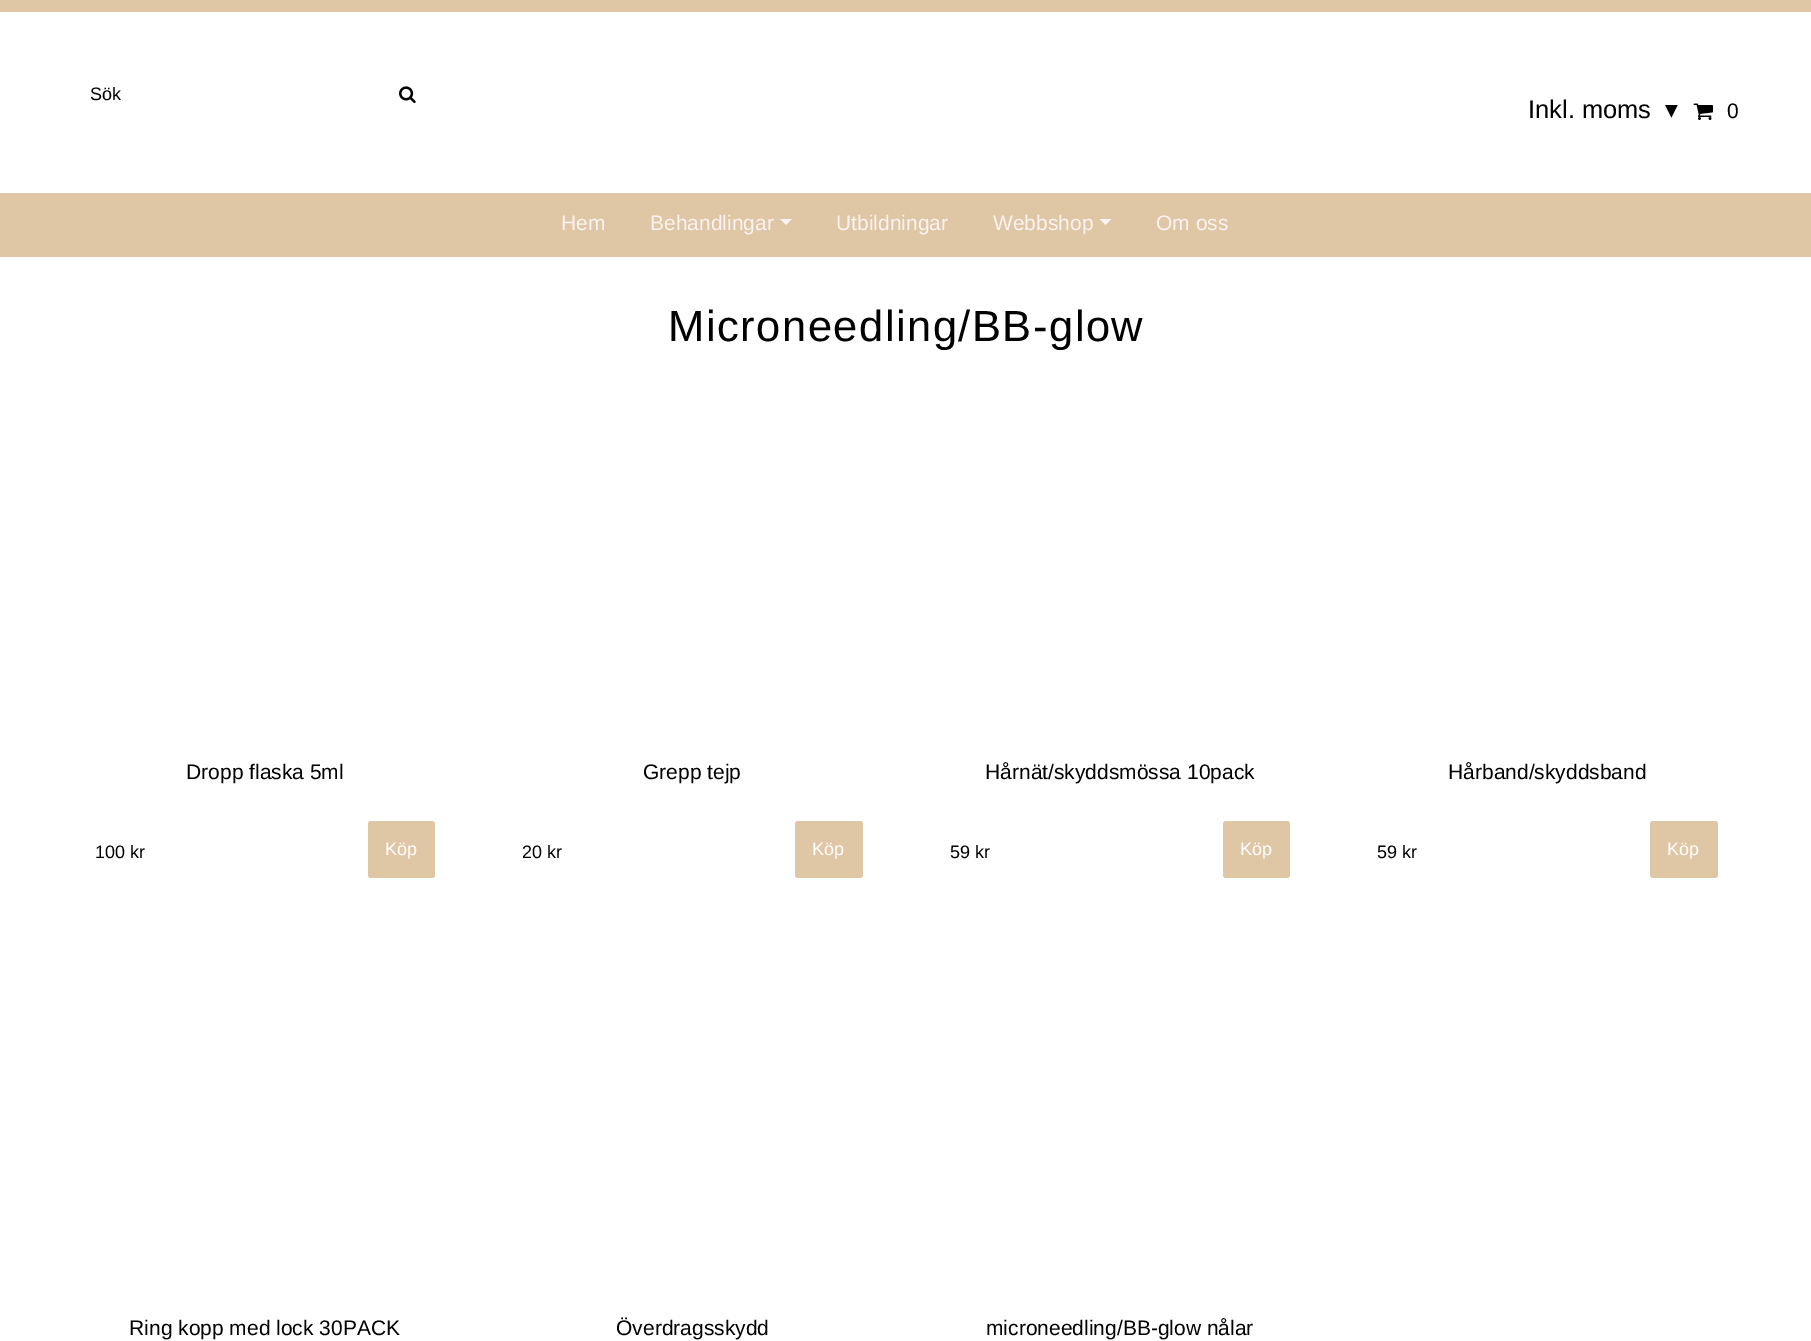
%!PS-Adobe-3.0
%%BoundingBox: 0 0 1811 1341
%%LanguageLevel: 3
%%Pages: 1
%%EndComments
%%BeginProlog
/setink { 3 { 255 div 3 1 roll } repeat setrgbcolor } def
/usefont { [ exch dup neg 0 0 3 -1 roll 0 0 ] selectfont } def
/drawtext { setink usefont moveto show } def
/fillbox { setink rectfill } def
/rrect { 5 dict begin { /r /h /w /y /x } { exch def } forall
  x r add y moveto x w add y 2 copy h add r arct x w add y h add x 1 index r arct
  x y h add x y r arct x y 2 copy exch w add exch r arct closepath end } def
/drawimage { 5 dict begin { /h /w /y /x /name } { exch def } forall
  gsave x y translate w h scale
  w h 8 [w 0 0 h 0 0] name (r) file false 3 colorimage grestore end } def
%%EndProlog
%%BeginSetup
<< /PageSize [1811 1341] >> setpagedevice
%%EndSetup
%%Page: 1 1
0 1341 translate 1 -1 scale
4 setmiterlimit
0 0 1811 1341 255 255 255 fillbox
0 0 1811 12 223 198 165 fillbox
(Sök) 90 100 /LiberationSans-Regular 18 0 0 0 drawtext
(assets/img1.rgb) 399 86 17 18 drawimage
(Inkl. moms) 1528 118 /LiberationSans-Regular 25.5 0 0 0 drawtext
(▾) 1665 118 /DejaVuSans-Regular 25.5 0 0 0 drawtext
(assets/img2.rgb) 1693 103 20 17 drawimage
(0) 1727 118 /LiberationSans-Regular 21 0 0 0 drawtext
0 193 1811 64 223 198 165 fillbox
(Hem) 561 230 /LiberationSans-Regular 21 251 243 243 drawtext
(Behandlingar) 650 230 /LiberationSans-Regular 21 251 243 243 drawtext
780 219 moveto 792 219 lineto 786 225 lineto closepath fill
(Utbildningar) 836 230 /LiberationSans-Regular 21 251 243 243 drawtext
(Webbshop) 993 230 /LiberationSans-Regular 21 251 243 243 drawtext
1099.5 219 moveto 1111.5 219 lineto 1105.5 225 lineto closepath fill
(Om oss) 1156 230 /LiberationSans-Regular 21 251 243 243 drawtext
/LiberationSans-Regular 43.5 usefont
0 0 0 setink
668 341 moveto 1.5 0 (Microneedling/BB-glow) ashow
(Dropp flaska 5ml) 186 779 /LiberationSans-Regular 21 0 0 0 drawtext
(100 kr) 95 858 /LiberationSans-Regular 18 0 0 0 drawtext
223 198 165 setink
368 821 67 57 3 rrect fill
(Köp) 385 855 /LiberationSans-Regular 18 255 255 255 drawtext
(Grepp tejp) 643 779 /LiberationSans-Regular 21 0 0 0 drawtext
(20 kr) 522 858 /LiberationSans-Regular 18 0 0 0 drawtext
223 198 165 setink
795 821 68 57 3 rrect fill
(Köp) 812 855 /LiberationSans-Regular 18 255 255 255 drawtext
(Hårnät/skyddsmössa 10pack) 985 779 /LiberationSans-Regular 21 0 0 0 drawtext
(59 kr) 950 858 /LiberationSans-Regular 18 0 0 0 drawtext
223 198 165 setink
1223 821 67 57 3 rrect fill
(Köp) 1240 855 /LiberationSans-Regular 18 255 255 255 drawtext
(Hårband/skyddsband) 1448 779 /LiberationSans-Regular 21 0 0 0 drawtext
(59 kr) 1377 858 /LiberationSans-Regular 18 0 0 0 drawtext
223 198 165 setink
1650 821 68 57 3 rrect fill
(Köp) 1667 855 /LiberationSans-Regular 18 255 255 255 drawtext
(Ring kopp med lock 30PACK) 129 1335 /LiberationSans-Regular 21 0 0 0 drawtext
(Överdragsskydd) 616 1335 /LiberationSans-Regular 21 0 0 0 drawtext
(microneedling/BB-glow nålar) 986 1335 /LiberationSans-Regular 21 0 0 0 drawtext
showpage
%%EOF
